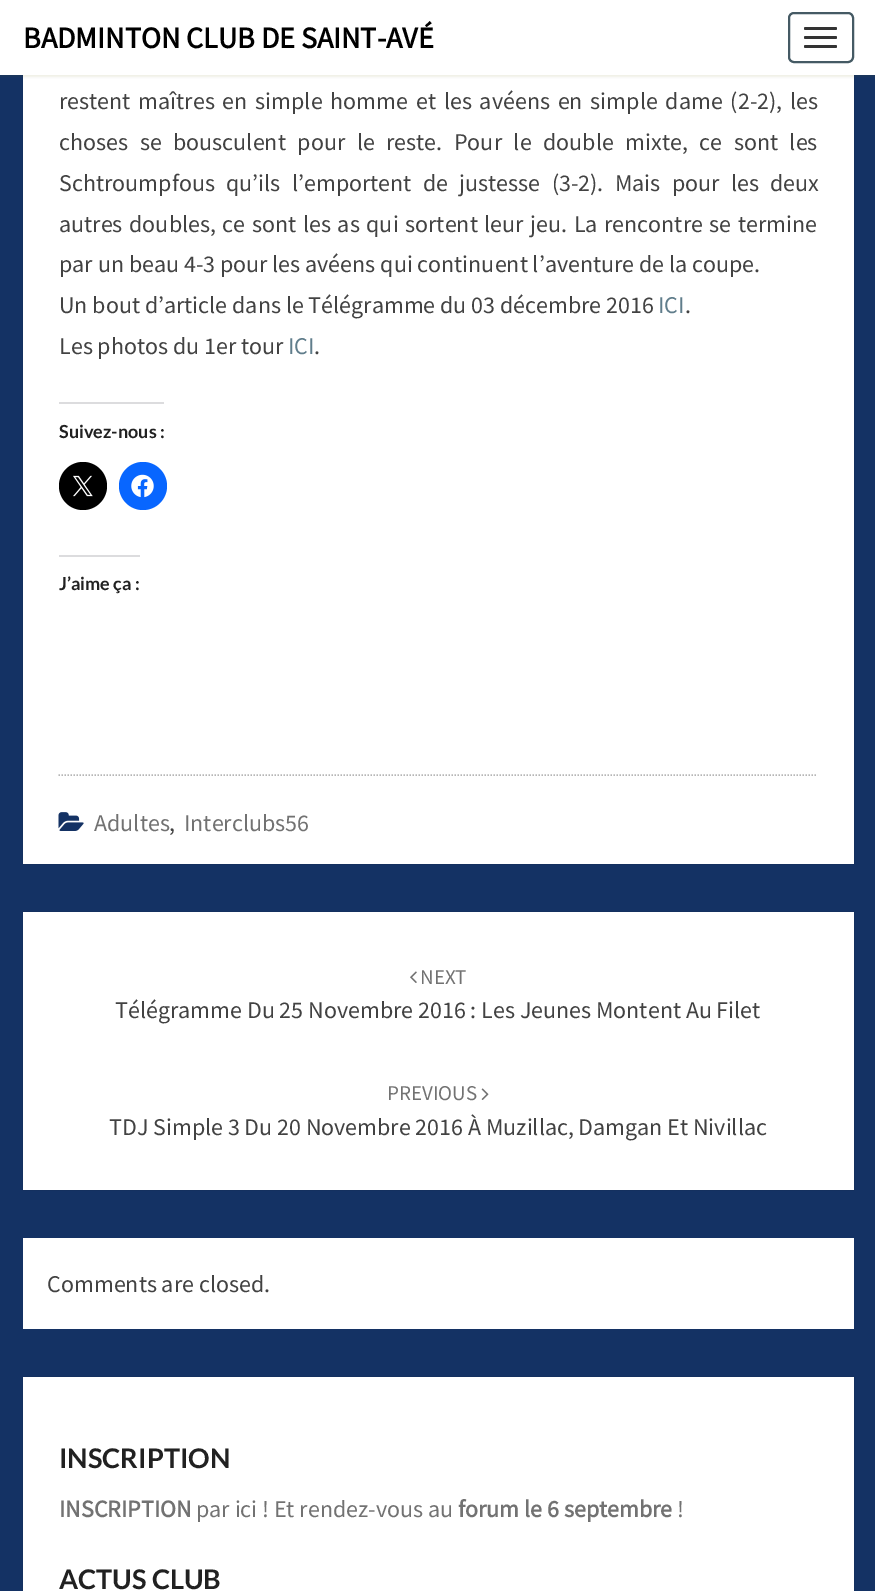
%!PS-Adobe-3.0
%%BoundingBox: 0 0 875 1591
%%LanguageLevel: 3
%%Pages: 1
%%EndComments
%%BeginProlog
/setink { 3 { 255 div 3 1 roll } repeat setrgbcolor } def
/usefont { [ exch dup neg 0 0 3 -1 roll 0 0 ] selectfont } def
/drawtext { setink usefont moveto show } def
/fillbox { setink rectfill } def
/setalpha { dup .setfillconstantalpha .setstrokeconstantalpha } def
/disc { newpath 0 360 arc closepath } def
/rrect { 5 dict begin { /r /h /w /y /x } { exch def } forall
  x r add y moveto x w add y 2 copy h add r arct x w add y h add x 1 index r arct
  x y h add x y r arct x y 2 copy exch w add exch r arct closepath end } def
/softshadow { 12 dict begin { /a /b /q /h /w /y /x } { exch def } forall gsave /was 0 def
  9 -2 -9 { dup b mul 4 div /e exch def 1 sub .425 mul 2.718 exch exp 1 add a .99 .min exch div /now exch def
    1 1 now sub 1 was sub div sub setalpha /was now def
    w h .min e 2 mul add 0 gt { x e sub y e sub w e 2 mul add h e 2 mul add
      q e add b .6 mul add w h .min 2 div e add .min 0 .max rrect fill } if } for grestore end } def
/drawimage { 5 dict begin { /h /w /y /x /name } { exch def } forall
  gsave x y translate w h scale
  w h 8 [w 0 0 h 0 0] name (r) file false 3 colorimage grestore end } def
%%EndProlog
%%BeginSetup
<< /PageSize [875 1591] /PageUsesTransparency true >> setpagedevice
%%EndSetup
%%Page: 1 1
0 .pushpdf14devicefilter
0 1591 translate 1 -1 scale
4 setmiterlimit
0 0 875 1591 20 50 100 fillbox
0 0 0 setink
23 -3 831 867 0 1 0.15 softshadow
23 75 831 789 255 255 255 fillbox
100 100 0 setink
0 2 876 75 0 1 0.1 softshadow
0 0 875 75 255 255 255 fillbox
(BADMINTON CLUB DE SAINT-AVÉ) 23 48 /SourceSansPro-Bold 30 0 0 0 drawtext
69 90 100 setink
2 setlinewidth
789 13 64 49 5 rrect stroke
51 51 51 setink
804 27 33 3 1.5 rrect fill
804 36 33 3 1.5 rrect fill
804 45 33 3 1.5 rrect fill
/SourceSansPro-Regular 24 usefont
66 66 66 setink
59 109 moveto 3 0 32 (restent maîtres en simple homme et les avéens en simple dame \(2-2\), les) widthshow
59 150 moveto 6.75 0 32 (choses se bousculent pour le reste. Pour le double mixte, ce sont les) widthshow
59 191 moveto 6.5 0 32 (Schtroumpfous qu’ils l’emportent de justesse \(3-2\). Mais pour les deux) widthshow
59 232 moveto 1.8 0 32 (autres doubles, ce sont les as qui sortent leur jeu. La rencontre se termine) widthshow
(par un beau 4-3 pour les avéens qui continuent l’aventure de la coupe.) 59 272 /SourceSansPro-Regular 24 66 66 66 drawtext
(Un bout d’article dans le Télégramme du 03 décembre 2016) 59 313 /SourceSansPro-Regular 24 66 66 66 drawtext
(ICI) 658 313 /SourceSansPro-Regular 24 96 125 139 drawtext
(.) 685 313 /SourceSansPro-Regular 24 66 66 66 drawtext
(Les photos du 1er tour) 59 354 /SourceSansPro-Regular 24 66 66 66 drawtext
(ICI) 288 354 /SourceSansPro-Regular 24 96 125 139 drawtext
(.) 314 354 /SourceSansPro-Regular 24 66 66 66 drawtext
59 402 105 2 220 220 222 fillbox
(Suivez-nous :) 59 438 /Lato-Bold 18 33 33 33 drawtext
0 0 0 setink
83 486 24 disc fill
(assets/img1.rgb) 73 475 20 22 drawimage
8 102 255 setink
143 486 24 disc fill
(assets/img2.rgb) 131 474 23 24 drawimage
59 555 81 2 220 220 222 fillbox
(J’aime ça :) 59 590 /Lato-Bold 18 33 33 33 drawtext
182 182 182 setink
1.5 setlinewidth
[1.5 1.5] 0 setdash
58.5 775 moveto 817.5 775 lineto stroke
(assets/img3.rgb) 58 812 26 19 drawimage
(Adultes) 94 831 /SourceSansPro-Regular 24 114 114 114 drawtext
(,) 169 831 /SourceSansPro-Regular 24 66 66 66 drawtext
(Interclubs56) 184 831 /SourceSansPro-Regular 24 114 114 114 drawtext
0 0 0 setink
23 912 831 278 0 1 0.15 softshadow
23 912 831 278 255 255 255 fillbox
(assets/img4.rgb) 410 971 7 12 drawimage
(NEXT) 420 984 /SourceSansPro-Regular 21 114 114 114 drawtext
(Télégramme Du 25 Novembre 2016 : Les Jeunes Montent Au Filet) 115 1018 /SourceSansPro-Regular 24 66 66 66 drawtext
(PREVIOUS) 387 1100 /SourceSansPro-Regular 21 114 114 114 drawtext
(assets/img5.rgb) 481 1088 8 12 drawimage
(TDJ Simple 3 Du 20 Novembre 2016 À Muzillac, Damgan Et Nivillac) 109 1135 /SourceSansPro-Regular 24 66 66 66 drawtext
23 1238 831 91 255 255 255 fillbox
(Comments are closed.) 47 1292 /SourceSansPro-Regular 24 66 66 66 drawtext
0 0 0 setink
23 1377 831 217 0 1 0.15 softshadow
23 1377 831 214 255 255 255 fillbox
(INSCRIPTION) 59 1468 /Lato-Bold 27 33 33 33 drawtext
(INSCRIPTION) 59 1517 /SourceSansPro-Bold 24 114 114 114 drawtext
(par ici ! Et rendez-vous au) 196 1517 /SourceSansPro-Regular 24 114 114 114 drawtext
(forum le 6 septembre) 458 1517 /SourceSansPro-Bold 24 114 114 114 drawtext
(!) 677 1517 /SourceSansPro-Regular 24 114 114 114 drawtext
(ACTUS CLUB) 59 1589 /Lato-Bold 27 33 33 33 drawtext
.poppdf14devicefilter showpage
%%EOF
